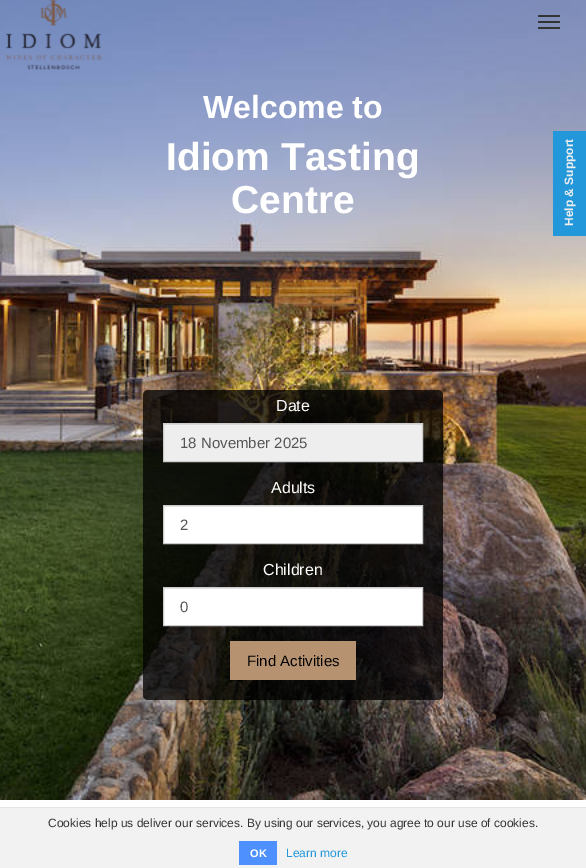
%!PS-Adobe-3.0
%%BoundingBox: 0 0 586 868
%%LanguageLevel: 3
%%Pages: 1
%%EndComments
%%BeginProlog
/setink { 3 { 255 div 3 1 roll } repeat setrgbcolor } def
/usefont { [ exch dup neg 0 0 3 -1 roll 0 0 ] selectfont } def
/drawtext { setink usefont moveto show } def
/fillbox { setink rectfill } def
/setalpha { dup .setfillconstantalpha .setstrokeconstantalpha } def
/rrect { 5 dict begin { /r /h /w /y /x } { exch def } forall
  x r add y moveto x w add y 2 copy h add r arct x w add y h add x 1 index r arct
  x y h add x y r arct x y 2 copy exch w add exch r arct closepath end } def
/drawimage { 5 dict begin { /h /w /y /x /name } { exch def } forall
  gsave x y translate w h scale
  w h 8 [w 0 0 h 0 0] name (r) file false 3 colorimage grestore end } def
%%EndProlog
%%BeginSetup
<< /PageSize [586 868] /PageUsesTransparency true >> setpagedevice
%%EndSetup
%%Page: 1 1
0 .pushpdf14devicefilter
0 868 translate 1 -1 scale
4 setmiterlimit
0 0 586 868 255 255 255 fillbox
(assets/img2.rgb) 0 0 586 800 drawimage
(assets/img1.rgb) 5 0 97 70 drawimage
51 51 51 setink
538 15 22 2 1 rrect fill
538 21 22 2 1 rrect fill
538 27 22 2 1 rrect fill
(Welcome to) 203 118 /LiberationSans-Bold 32 255 255 255 drawtext
(Idiom Tasting) 166 170 /LiberationSans-Bold 39 255 255 255 drawtext
(Centre) 231 213 /LiberationSans-Bold 39 255 255 255 drawtext
0.75 setalpha
0 0 0 setink
143 390 300 310 5 rrect fill
1 setalpha
(Date) 276 411 /LiberationSans-Regular 16 255 255 255 drawtext
164 425 258 36 238 238 238 fillbox
164 424 258 1 220 220 220 fillbox
204 204 204 setink
163.5 423.5 259 38 rectstroke
(18 November 2025) 180 448 /LiberationSans-Regular 15 85 85 85 drawtext
(Adults) 271 493 /LiberationSans-Regular 16 255 255 255 drawtext
164 507 258 36 255 255 255 fillbox
164 506 258 1 236 236 236 fillbox
204 204 204 setink
163.5 505.5 259 38 rectstroke
(2) 180 530 /LiberationSans-Regular 15 85 85 85 drawtext
(Children) 263 575 /LiberationSans-Regular 16 255 255 255 drawtext
164 589 258 36 255 255 255 fillbox
164 588 258 1 236 236 236 fillbox
204 204 204 setink
163.5 587.5 259 38 rectstroke
(0) 180 612 /LiberationSans-Regular 15 85 85 85 drawtext
230 641 126 39 183 146 112 fillbox
(Find Activities) 247 666 /LiberationSans-Regular 15 0 0 0 drawtext
553 131 33 105 34 151 218 fillbox
/LiberationSans-Bold 12 usefont
238 238 238 setink
gsave 573 226 translate -90 rotate 0 0 moveto (Help & Support) show grestore
0 808 586 60 242 242 242 fillbox
0 807 586 1 228 228 228 fillbox
(Cookies help us deliver our services. By using our services, you agree to our use of cookies.) 48 827 /LiberationSans-Regular 12 51 51 51 drawtext
239 841 38 24 77 144 254 fillbox
(OK) 250 857 /LiberationSans-Bold 11 255 255 255 drawtext
(Learn more) 286 857 /LiberationSans-Regular 12 34 151 218 drawtext
.poppdf14devicefilter showpage
%%EOF
